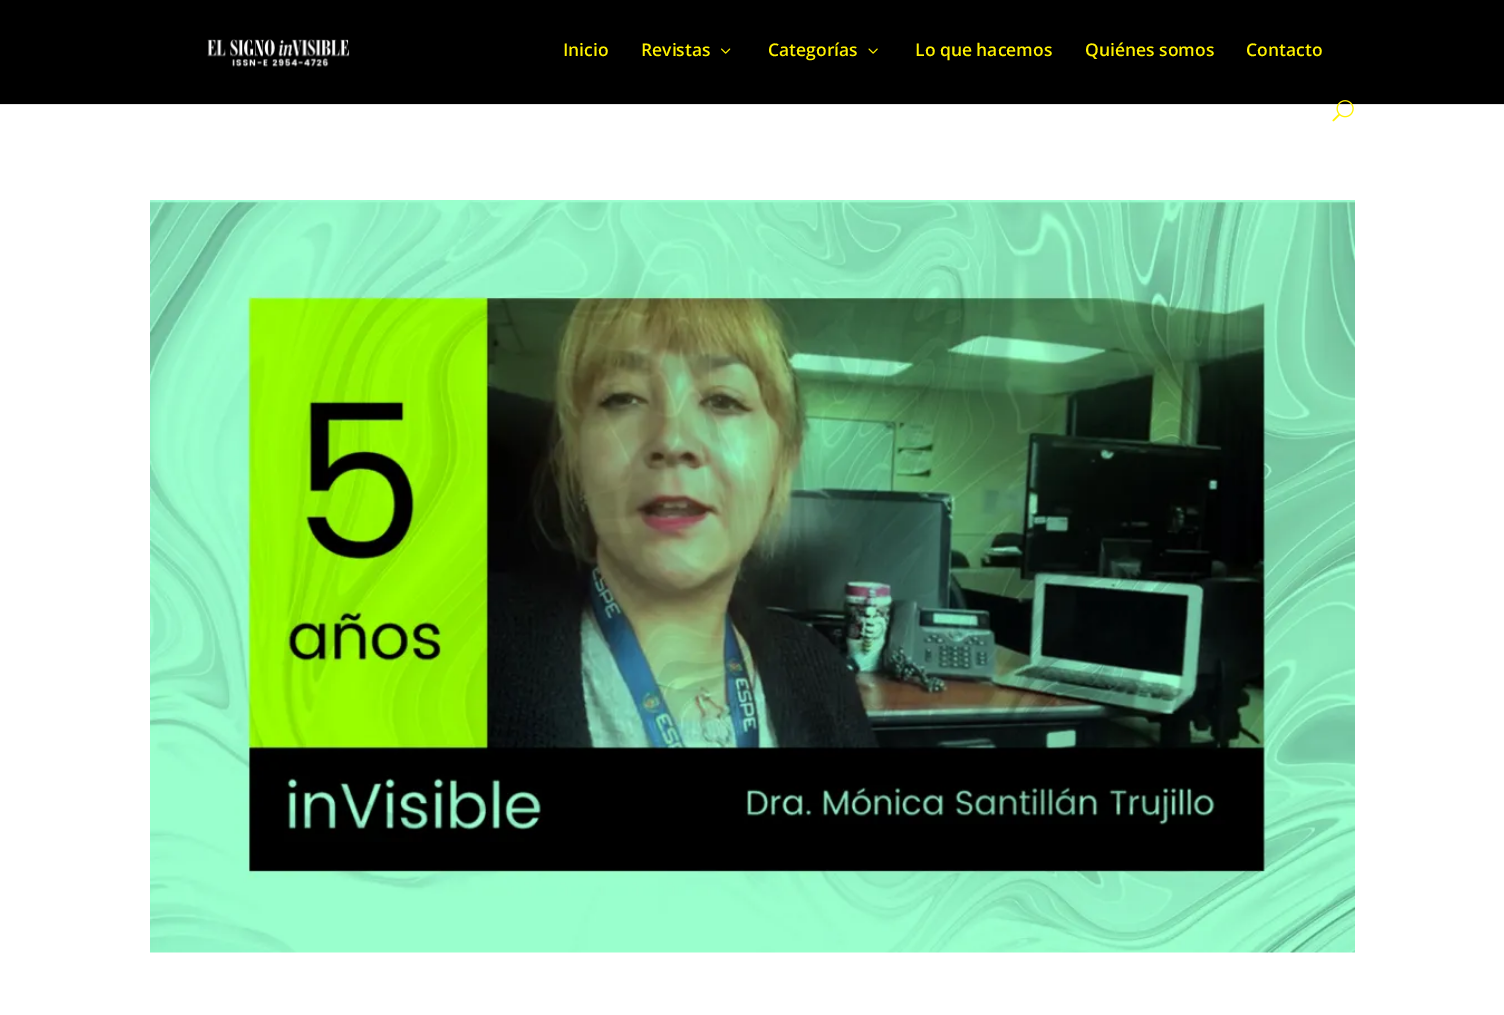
%!PS-Adobe-3.0
%%BoundingBox: 0 0 1504 1015
%%LanguageLevel: 3
%%Pages: 1
%%EndComments
%%BeginProlog
/setink { 3 { 255 div 3 1 roll } repeat setrgbcolor } def
/usefont { [ exch dup neg 0 0 3 -1 roll 0 0 ] selectfont } def
/drawtext { setink usefont moveto show } def
/fillbox { setink rectfill } def
/drawimage { 5 dict begin { /h /w /y /x /name } { exch def } forall
  gsave x y translate w h scale
  w h 8 [w 0 0 h 0 0] name (r) file false 3 colorimage grestore end } def
%%EndProlog
%%BeginSetup
<< /PageSize [1504 1015] >> setpagedevice
%%EndSetup
%%Page: 1 1
0 1015 translate 1 -1 scale
4 setmiterlimit
0 0 1504 1015 255 255 255 fillbox
0 104 1504 1 230 230 230 fillbox
0 0 1504 104 0 0 0 fillbox
(assets/img1.rgb) 207 39 143 28 drawimage
(Inicio) 563 56 /OpenSans-SemiBold 17.5 255 242 0 drawtext
(Revistas) 641 56 /OpenSans-SemiBold 17.5 255 242 0 drawtext
(assets/img2.rgb) 721 48 10 6 drawimage
(Categorías) 768 56 /OpenSans-SemiBold 17.5 255 242 0 drawtext
(assets/img3.rgb) 868 48 10 6 drawimage
(Lo que hacemos) 915 56 /OpenSans-SemiBold 17.5 255 242 0 drawtext
(Quiénes somos) 1085 56 /OpenSans-SemiBold 17.5 255 242 0 drawtext
(Contacto) 1246 56 /OpenSans-SemiBold 17.5 255 242 0 drawtext
(assets/img4.rgb) 1332 100 22 22 drawimage
(assets/img5.rgb) 150 200 1205 753 drawimage
showpage
%%EOF
